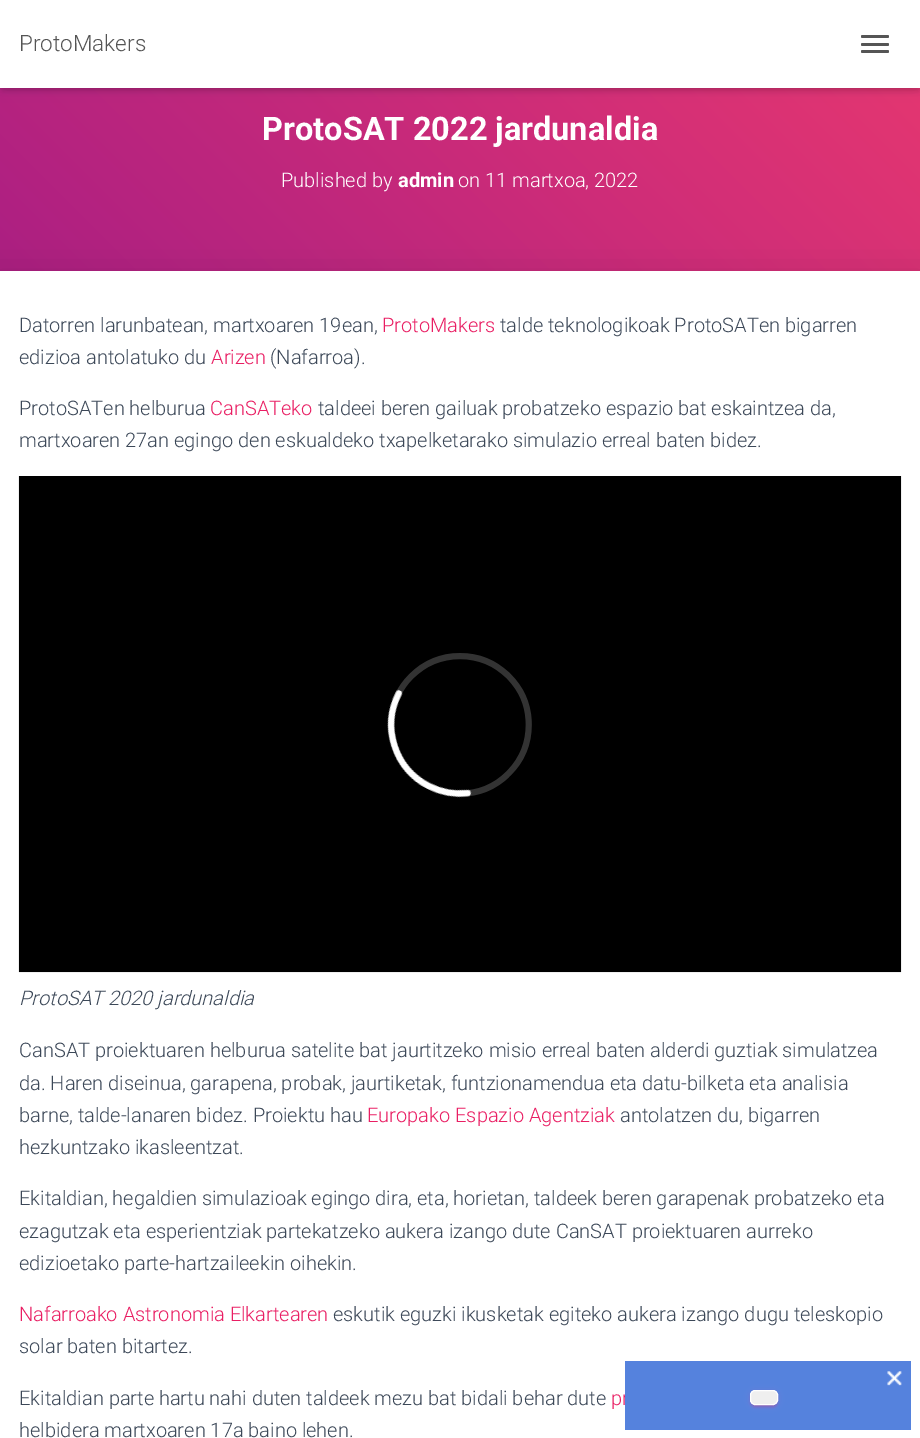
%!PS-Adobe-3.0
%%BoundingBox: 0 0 920 1438
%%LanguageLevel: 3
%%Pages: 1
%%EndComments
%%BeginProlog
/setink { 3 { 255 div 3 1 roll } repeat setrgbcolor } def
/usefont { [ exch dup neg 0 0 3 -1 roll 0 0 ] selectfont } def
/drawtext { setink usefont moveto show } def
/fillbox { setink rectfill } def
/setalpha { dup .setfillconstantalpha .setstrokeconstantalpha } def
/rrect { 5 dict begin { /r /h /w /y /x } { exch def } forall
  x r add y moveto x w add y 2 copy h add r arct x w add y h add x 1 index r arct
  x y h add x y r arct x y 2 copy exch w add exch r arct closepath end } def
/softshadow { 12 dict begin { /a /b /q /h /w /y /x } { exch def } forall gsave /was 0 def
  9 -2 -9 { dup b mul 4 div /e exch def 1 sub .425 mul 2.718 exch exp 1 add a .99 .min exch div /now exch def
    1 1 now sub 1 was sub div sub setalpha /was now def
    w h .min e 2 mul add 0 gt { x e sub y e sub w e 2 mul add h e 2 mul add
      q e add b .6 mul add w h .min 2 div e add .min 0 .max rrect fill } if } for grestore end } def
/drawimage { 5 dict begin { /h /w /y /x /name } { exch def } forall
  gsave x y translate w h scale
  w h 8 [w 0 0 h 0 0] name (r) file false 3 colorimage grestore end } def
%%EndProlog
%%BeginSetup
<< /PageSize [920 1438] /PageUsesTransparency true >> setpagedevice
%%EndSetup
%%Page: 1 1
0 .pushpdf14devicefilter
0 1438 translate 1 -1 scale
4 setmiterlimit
0 0 920 1438 255 255 255 fillbox
gsave 0 88 moveto 920 88 lineto 920 271 lineto 0 271 lineto closepath clip newpath
<< /ShadingType 2 /ColorSpace /DeviceRGB /Coords [133 479 788 -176] /Extend [true true] /Function << /FunctionType 2 /Domain [0 1] /C0 [0.659 0.114 0.518] /C1 [0.918 0.224 0.435] /N 1 >> >> shfill grestore
0 0 0 setink
3 8 915 82 0 3 0.1 softshadow
0 1 920 88 0 6 0.12 softshadow
8 9 905 72 0 6 0.42 softshadow
0 0 920 88 255 255 255 fillbox
(ProtoMakers) 19 51 /Roboto-Light 22.5 85 85 85 drawtext
861 35 28 3 1.5 rrect fill
861 43 28 3 1.5 rrect fill
861 50 28 3 1.5 rrect fill
(ProtoSAT 2022 jardunaldia) 262 140 /Roboto-Bold 32.5 255 255 255 drawtext
(Published by) 281 187 /Roboto-Light 20 255 255 255 drawtext
(admin) 398 187 /Roboto-Bold 20 255 255 255 drawtext
(on 11 martxoa, 2022) 458 187 /Roboto-Light 20 255 255 255 drawtext
0 0 0 setink
-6 273 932 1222 0 19 0.12 softshadow
0 271 920 1167 255 255 255 fillbox
(Datorren larunbatean, martxoaren 19ean,) 19 332 /Roboto-Light 20 60 72 88 drawtext
(ProtoMakers) 382 332 /Roboto-Light 20 233 30 99 drawtext
(talde teknologikoak ProtoSATen bigarren) 500 332 /Roboto-Light 20 60 72 88 drawtext
(edizioa antolatuko du) 19 364 /Roboto-Light 20 60 72 88 drawtext
(Arizen) 211 364 /Roboto-Light 20 233 30 99 drawtext
(\(Nafarroa\).) 270 364 /Roboto-Light 20 60 72 88 drawtext
(ProtoSATen helburua) 19 415 /Roboto-Light 20 60 72 88 drawtext
(CanSATeko) 210 415 /Roboto-Light 20 233 30 99 drawtext
(taldeei beren gailuak probatzeko espazio bat eskaintzea da,) 318 415 /Roboto-Light 20 60 72 88 drawtext
(martxoaren 27an egingo den eskualdeko txapelketarako simulazio erreal baten bidez.) 19 447 /Roboto-Light 20 60 72 88 drawtext
(assets/img1.rgb) 18 476 884 497 drawimage
(ProtoSAT 2020 jardunaldia) 19 1005 /Roboto-LightItalic 20 60 72 88 drawtext
(CanSAT proiektuaren helburua satelite bat jaurtitzeko misio erreal baten alderdi guztiak simulatzea) 19 1057 /Roboto-Light 20 60 72 88 drawtext
(da. Haren diseinua, garapena, probak, jaurtiketak, funtzionamendua eta datu-bilketa eta analisia) 19 1090 /Roboto-Light 20 60 72 88 drawtext
(barne, talde-lanaren bidez. Proiektu hau) 19 1122 /Roboto-Light 20 60 72 88 drawtext
(Europako Espazio Agentziak) 367 1122 /Roboto-Light 20 233 30 99 drawtext
(antolatzen du, bigarren) 620 1122 /Roboto-Light 20 60 72 88 drawtext
(hezkuntzako ikasleentzat.) 19 1154 /Roboto-Light 20 60 72 88 drawtext
(Ekitaldian, hegaldien simulazioak egingo dira, eta, horietan, taldeek beren garapenak probatzeko eta) 19 1205 /Roboto-Light 20 60 72 88 drawtext
(ezagutzak eta esperientziak partekatzeko aukera izango dute CanSAT proiektuaren aurreko) 19 1238 /Roboto-Light 20 60 72 88 drawtext
(edizioetako parte-hartzaileekin oihekin.) 19 1270 /Roboto-Light 20 60 72 88 drawtext
(Nafarroako Astronomia Elkartearen) 19 1321 /Roboto-Light 20 233 30 99 drawtext
(eskutik eguzki ikusketak egiteko aukera izango dugu teleskopio) 333 1321 /Roboto-Light 20 60 72 88 drawtext
(solar baten bitartez.) 19 1353 /Roboto-Light 20 60 72 88 drawtext
(Ekitaldian parte hartu nahi duten taldeek mezu bat bidali behar dute) 19 1405 /Roboto-Light 20 60 72 88 drawtext
(pr) 611 1405 /Roboto-Light 20 233 30 99 drawtext
(helbidera martxoaren 17a baino lehen.) 19 1437 /Roboto-Light 20 60 72 88 drawtext
625 1361 286 69 85 130 221 fillbox
(assets/img2.rgb) 887 1371 15 15 drawimage
233 30 99 setink
750 1391 28 15 5 3 0.12 softshadow
753 1396 22 10 2.5 0.5 0.2 softshadow
750 1393 28 15 5 1 0.14 softshadow
239 239 239 setink
750.5 1390.5 27 14 4.5 rrect gsave fill grestore
255 255 255 setink
stroke
.poppdf14devicefilter showpage
%%EOF
